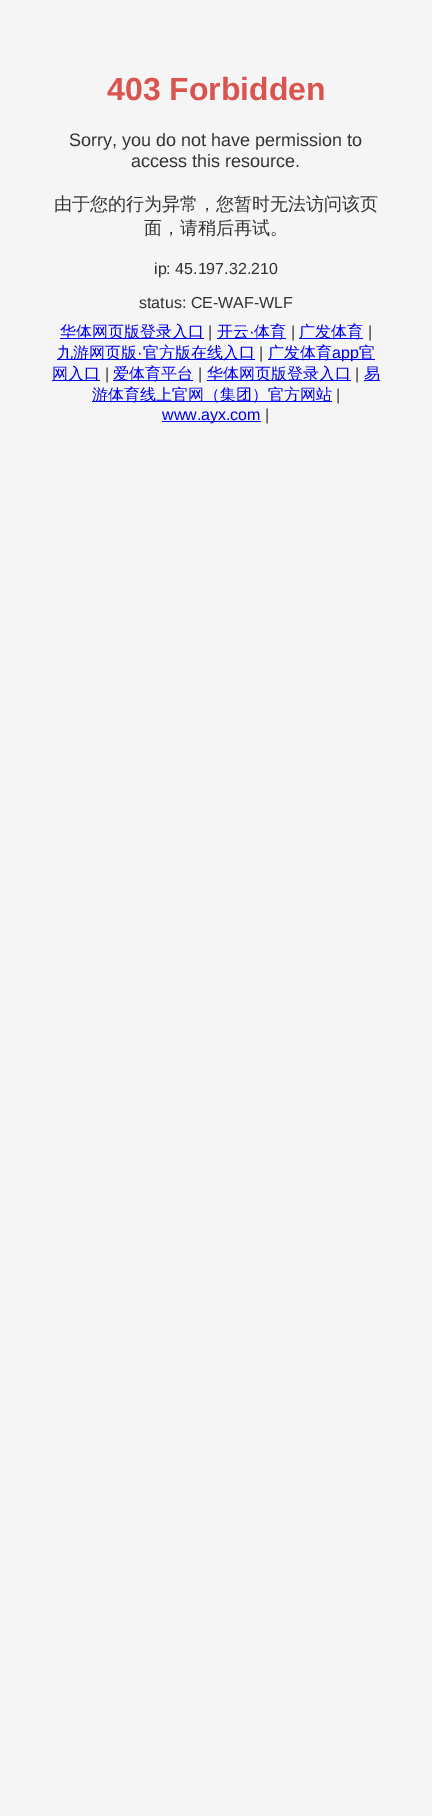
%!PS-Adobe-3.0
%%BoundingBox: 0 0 432 1816
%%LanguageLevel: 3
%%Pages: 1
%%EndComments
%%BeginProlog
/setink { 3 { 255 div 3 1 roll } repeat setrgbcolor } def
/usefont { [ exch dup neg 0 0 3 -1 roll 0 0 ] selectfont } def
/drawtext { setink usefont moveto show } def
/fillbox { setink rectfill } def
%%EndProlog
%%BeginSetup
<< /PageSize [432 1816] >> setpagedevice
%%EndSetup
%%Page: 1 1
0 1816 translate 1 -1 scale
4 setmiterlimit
0 0 432 1816 245 245 245 fillbox
(403 Forbidden) 107 100 /LiberationSans-Bold 32 217 83 79 drawtext
(Sorry, you do not have permission to) 69 146 /LiberationSans-Regular 18 51 51 51 drawtext
(access this resource.) 131 167 /LiberationSans-Regular 18 51 51 51 drawtext
(由于您的行为异常，您暂时无法访问该页) 54 210 /WenQuanYiZenHei-Medium 18 51 51 51 drawtext
(面，请稍后再试。) 144 234 /WenQuanYiZenHei-Medium 18 51 51 51 drawtext
(ip: 45.197.32.210) 154 274 /LiberationSans-Regular 16 51 51 51 drawtext
(status: CE-WAF-WLF) 139 308 /LiberationSans-Regular 16 51 51 51 drawtext
60 338 144 1 0 0 238 fillbox
(华体网页版登录入口) 60 337 /WenQuanYiZenHei-Medium 16 0 0 238 drawtext
(|) 208 337 /LiberationSans-Regular 16 51 51 51 drawtext
217 338 69 1 0 0 238 fillbox
(开云) 217 337 /WenQuanYiZenHei-Medium 16 0 0 238 drawtext
(·) 249 337 /LiberationSans-Regular 16 0 0 238 drawtext
(体育) 254 337 /WenQuanYiZenHei-Medium 16 0 0 238 drawtext
(|) 291 337 /LiberationSans-Regular 16 51 51 51 drawtext
299 338 64 1 0 0 238 fillbox
(广发体育) 299 337 /WenQuanYiZenHei-Medium 16 0 0 238 drawtext
(|) 368 337 /LiberationSans-Regular 16 51 51 51 drawtext
57 359 198 1 0 0 238 fillbox
(九游网页版) 57 358 /WenQuanYiZenHei-Medium 16 0 0 238 drawtext
(·) 137 358 /LiberationSans-Regular 16 0 0 238 drawtext
(官方版在线入口) 143 358 /WenQuanYiZenHei-Medium 16 0 0 238 drawtext
(|) 259 358 /LiberationSans-Regular 16 51 51 51 drawtext
268 359 107 1 0 0 238 fillbox
(广发体育) 268 358 /WenQuanYiZenHei-Medium 16 0 0 238 drawtext
(app) 332 358 /LiberationSans-Regular 16 0 0 238 drawtext
(官) 359 358 /WenQuanYiZenHei-Medium 16 0 0 238 drawtext
52 380 48 1 0 0 238 fillbox
(网入口) 52 379 /WenQuanYiZenHei-Medium 16 0 0 238 drawtext
(|) 105 379 /LiberationSans-Regular 16 51 51 51 drawtext
113 380 80 1 0 0 238 fillbox
(爱体育平台) 113 379 /WenQuanYiZenHei-Medium 16 0 0 238 drawtext
(|) 198 379 /LiberationSans-Regular 16 51 51 51 drawtext
207 380 144 1 0 0 238 fillbox
(华体网页版登录入口) 207 379 /WenQuanYiZenHei-Medium 16 0 0 238 drawtext
(|) 355 379 /LiberationSans-Regular 16 51 51 51 drawtext
364 380 16 1 0 0 238 fillbox
(易) 364 379 /WenQuanYiZenHei-Medium 16 0 0 238 drawtext
92 401 240 1 0 0 238 fillbox
(游体育线上官网（集团）官方网站) 92 400 /WenQuanYiZenHei-Medium 16 0 0 238 drawtext
(|) 336 400 /LiberationSans-Regular 16 51 51 51 drawtext
162 421 99 1 0 0 238 fillbox
(www.ayx.com) 162 420 /LiberationSans-Regular 16 0 0 238 drawtext
(|) 265 420 /LiberationSans-Regular 16 51 51 51 drawtext
showpage
%%EOF
